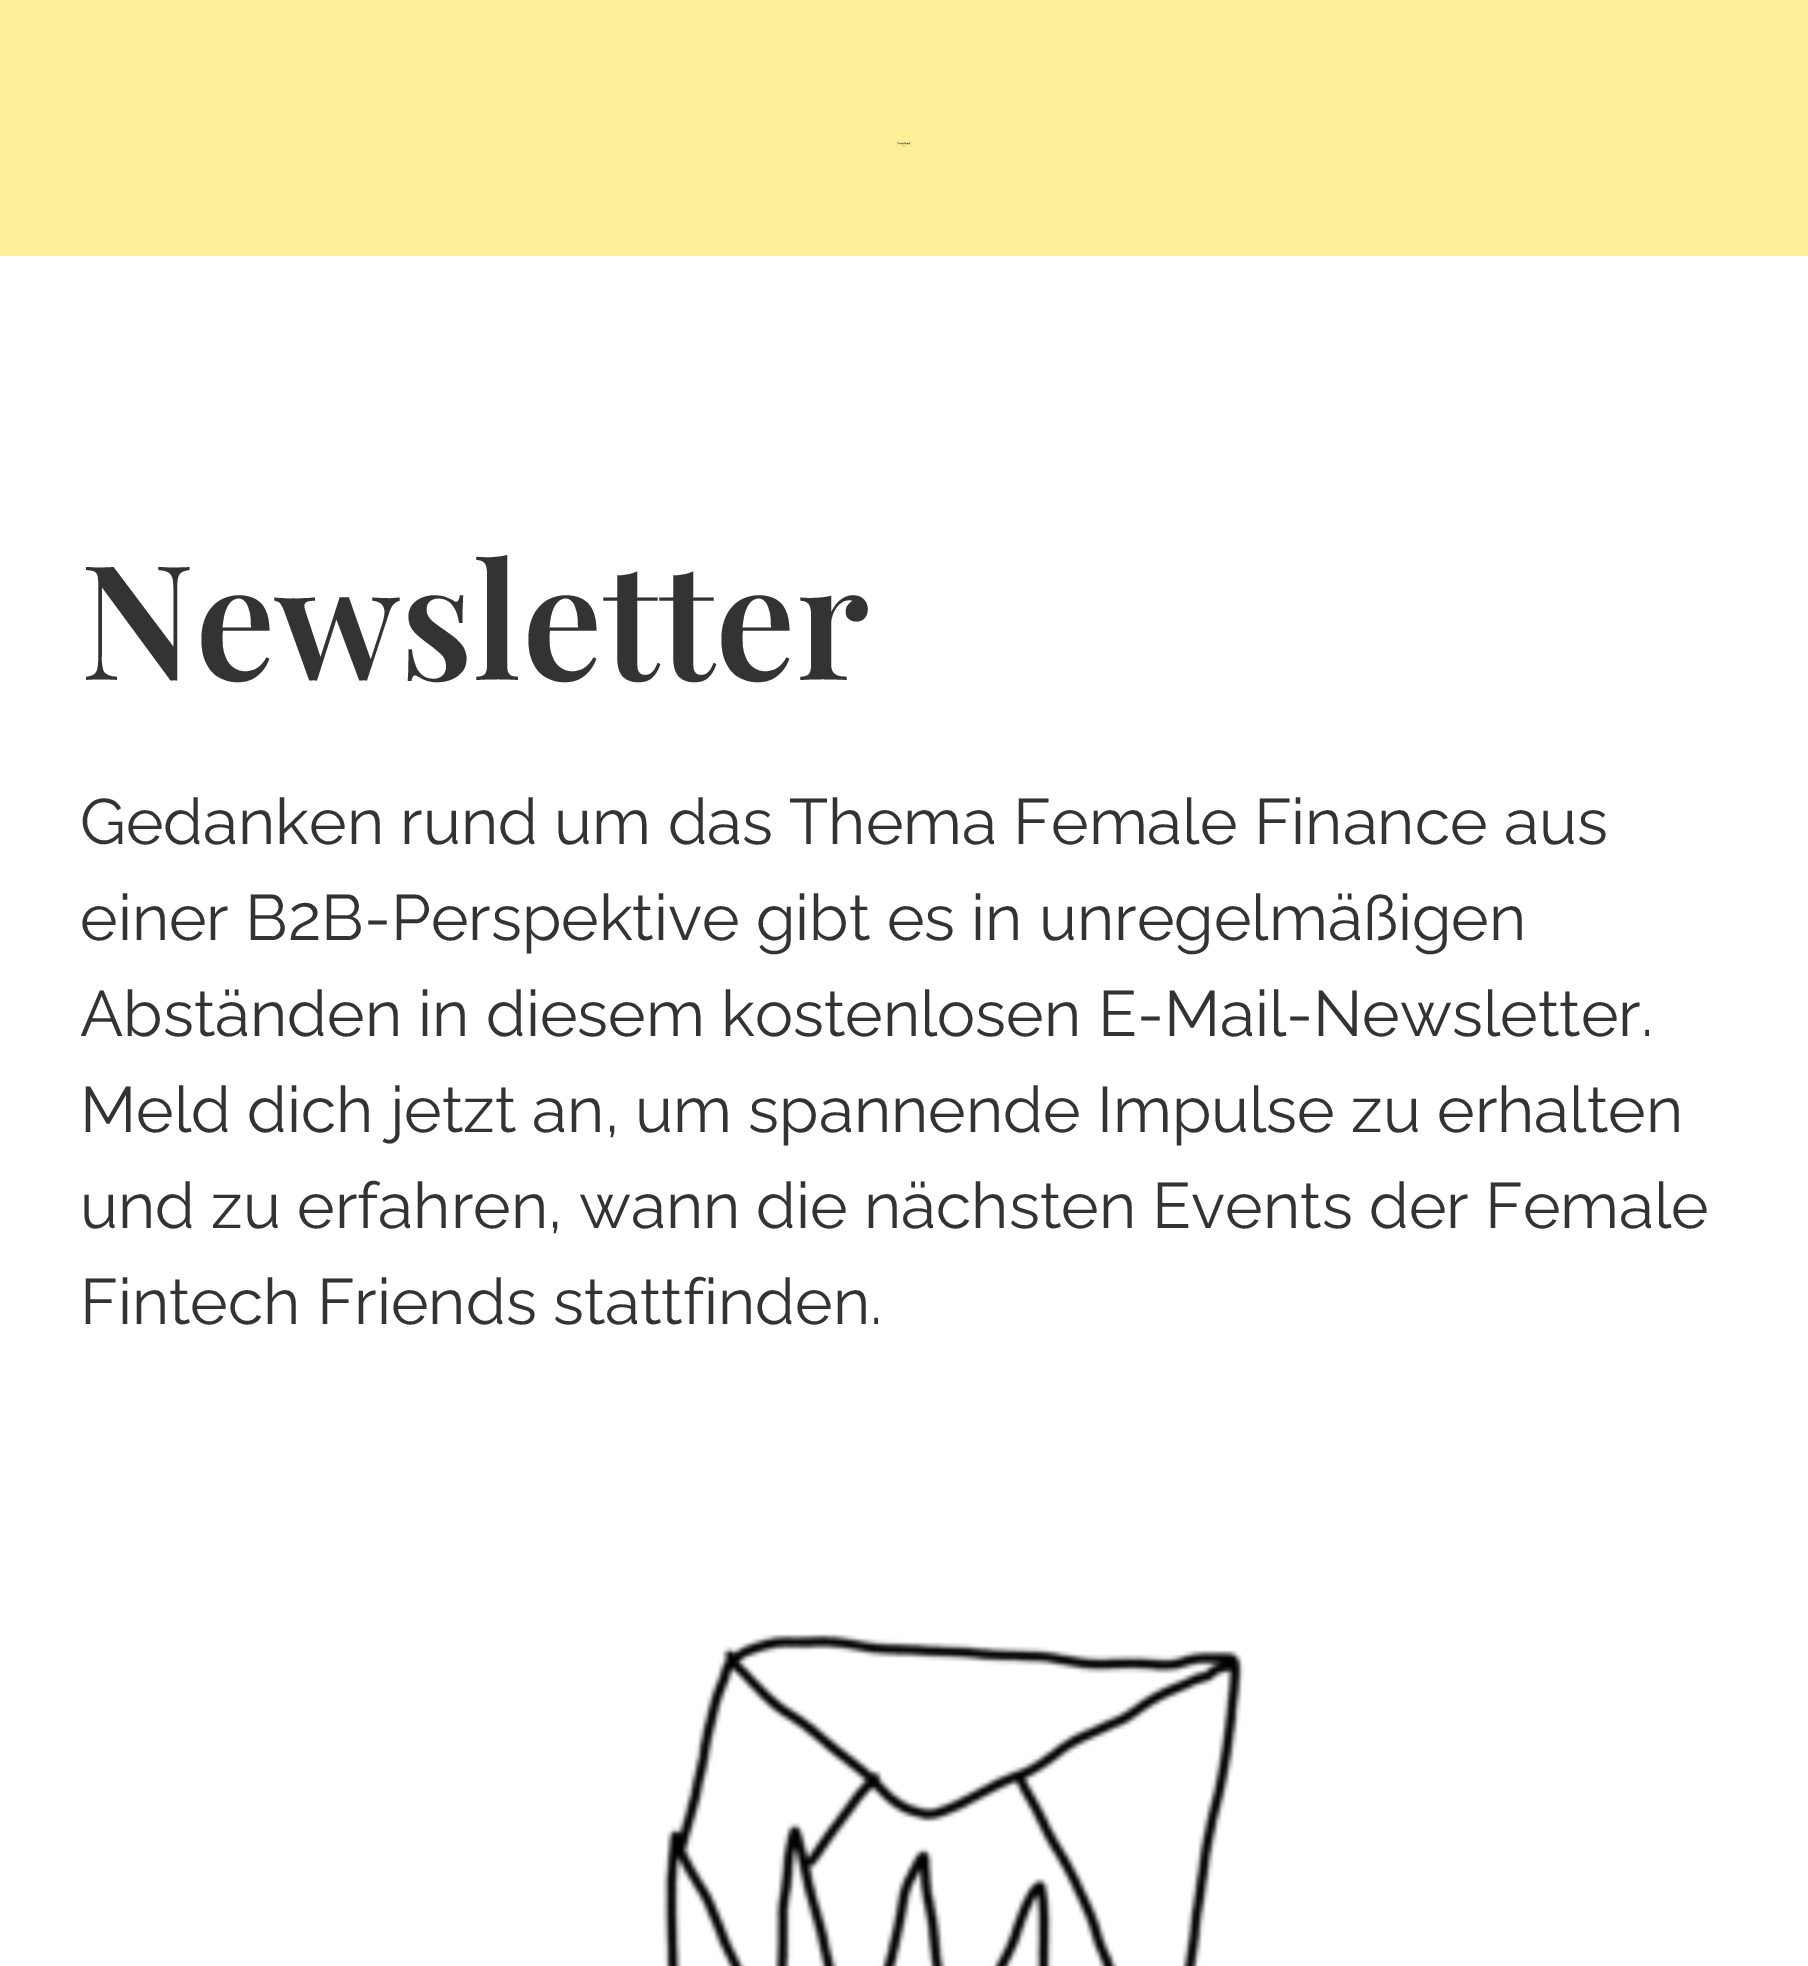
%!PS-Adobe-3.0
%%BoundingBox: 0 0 1808 1966
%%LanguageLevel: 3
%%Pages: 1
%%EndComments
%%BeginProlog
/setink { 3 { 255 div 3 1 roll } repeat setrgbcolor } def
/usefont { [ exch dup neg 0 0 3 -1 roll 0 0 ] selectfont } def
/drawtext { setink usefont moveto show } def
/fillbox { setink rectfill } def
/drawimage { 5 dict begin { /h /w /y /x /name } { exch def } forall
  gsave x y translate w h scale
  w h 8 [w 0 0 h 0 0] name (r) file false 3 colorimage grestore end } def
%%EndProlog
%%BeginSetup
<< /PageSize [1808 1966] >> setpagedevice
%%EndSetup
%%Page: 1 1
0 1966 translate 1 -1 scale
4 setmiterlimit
0 0 1808 1966 255 255 255 fillbox
0 0 1808 256 255 240 154 fillbox
(assets/img1.rgb) 896 140 16 7 drawimage
(Newsletter) 80 680 /PlayfairDisplay-SemiBold 160 51 51 51 drawtext
(Gedanken rund um das Thema Female Finance aus) 80 844 /Raleway-Regular 64 51 51 51 drawtext
(einer B2B-Perspektive gibt es in unregelmäßigen) 80 940 /Raleway-Regular 64 51 51 51 drawtext
(Abständen in diesem kostenlosen E-Mail-Newsletter.) 80 1036 /Raleway-Regular 64 51 51 51 drawtext
(Meld dich jetzt an, um spannende Impulse zu erhalten) 80 1132 /Raleway-Regular 64 51 51 51 drawtext
(und zu erfahren, wann die nächsten Events der Female) 80 1228 /Raleway-Regular 64 51 51 51 drawtext
(Fintech Friends stattfinden.) 80 1324 /Raleway-Regular 64 51 51 51 drawtext
(assets/img2.rgb) 662 1633 583 333 drawimage
showpage
%%EOF
